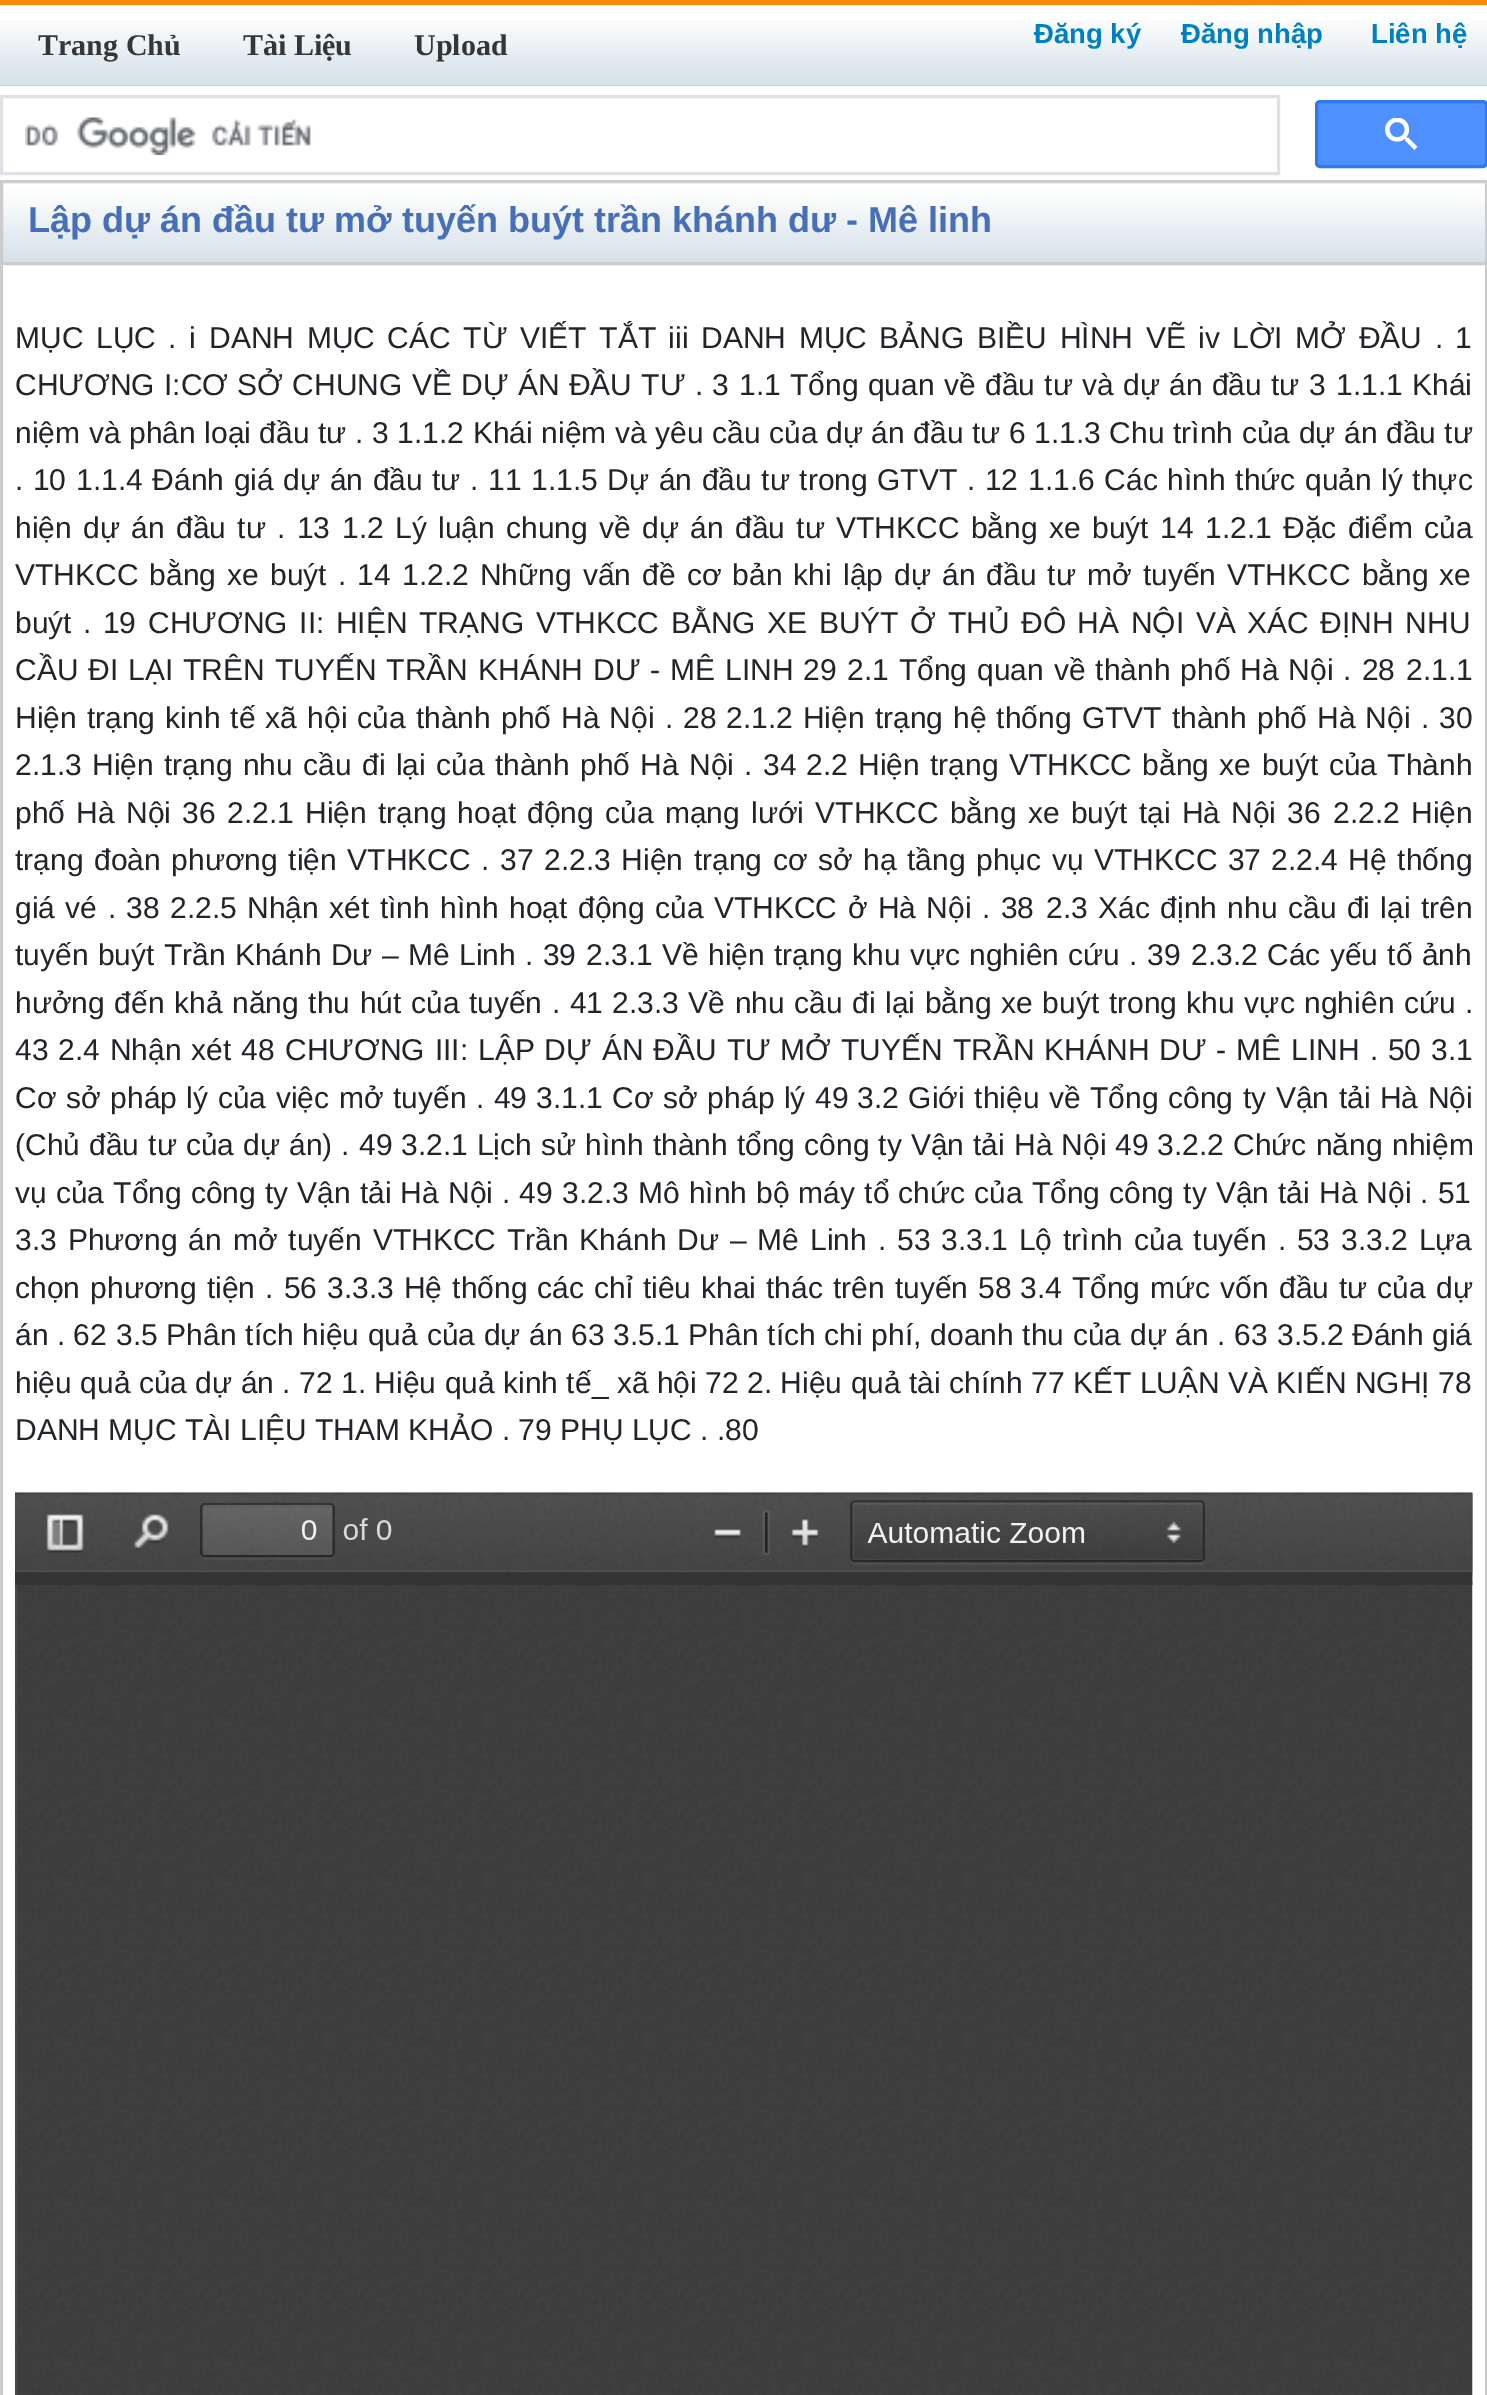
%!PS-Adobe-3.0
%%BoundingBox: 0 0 1487 2395
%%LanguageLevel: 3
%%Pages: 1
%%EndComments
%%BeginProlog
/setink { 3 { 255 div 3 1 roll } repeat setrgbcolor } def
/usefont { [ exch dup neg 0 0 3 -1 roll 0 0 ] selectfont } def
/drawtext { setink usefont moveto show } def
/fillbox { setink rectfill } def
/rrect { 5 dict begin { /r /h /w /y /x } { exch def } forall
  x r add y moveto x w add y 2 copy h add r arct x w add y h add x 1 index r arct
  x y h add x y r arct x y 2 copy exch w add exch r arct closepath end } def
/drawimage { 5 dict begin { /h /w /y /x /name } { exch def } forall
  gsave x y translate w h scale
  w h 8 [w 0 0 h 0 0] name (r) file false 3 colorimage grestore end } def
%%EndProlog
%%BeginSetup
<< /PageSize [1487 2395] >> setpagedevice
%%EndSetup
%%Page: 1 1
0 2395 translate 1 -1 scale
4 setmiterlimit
0 0 1487 2395 255 255 255 fillbox
0 0 1487 5 252 136 9 fillbox
0 85 1487 1 204 204 204 fillbox
(assets/img1.rgb) 0 19 1487 66 drawimage
(Trang Chủ) 38 55 /LiberationSerif-Bold 30 54 54 54 drawtext
(Tài Liệu) 243 55 /LiberationSerif-Bold 30 54 54 54 drawtext
(Upload) 414 55 /LiberationSerif-Bold 30 54 54 54 drawtext
(Đăng ký) 1034 43 /LiberationSans-Bold 27.5 0 127 194 drawtext
(Đăng nhập) 1181 43 /LiberationSans-Bold 27.5 0 127 194 drawtext
(Liên hệ) 1371 43 /LiberationSans-Bold 27.5 0 127 194 drawtext
223 225 229 setink
3 setlinewidth
1.5 96.5 1277 77 rectstroke
(assets/img2.rgb) 25 117 286 38 drawimage
77 144 254 setink
1316.5 101.5 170 65 3.5 rrect gsave fill grestore
48 121 237 setink
stroke
(assets/img3.rgb) 1385 118 33 32 drawimage
(assets/img4.rgb) 3 183 1482 79 drawimage
204 204 204 setink
1.5 181.5 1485 82 rectstroke
(Lập dự án đầu tư mở tuyến buýt trần khánh dư - Mê linh) 28 232 /LiberationSans-Bold 36 71 111 183 drawtext
1485 265 2 2130 204 204 204 fillbox
0 265 3 2130 204 204 204 fillbox
/LiberationSans-Regular 30 usefont
33 37 41 setink
15 348 moveto 4.25 0 32 (MỤC LỤC . i) widthshow
209 348 moveto 4.25 0 32 (DANH MỤC CÁC TỪ VIẾT TẮT iii) widthshow
701 348 moveto 4.25 0 32 (DANH MỤC BẢNG BIỀU HÌNH VẼ iv) widthshow
1232 348 moveto 4.25 0 32 (LỜI MỞ ĐẦU . 1) widthshow
15 395 moveto 1 0 32 (CHƯƠNG I:CƠ SỞ CHUNG VỀ DỰ ÁN ĐẦU TƯ . 3) widthshow
739 395 moveto 1 0 32 (1.1 Tổng quan về đầu tư và dự án đầu tư 3) widthshow
1336 395 moveto 1 0 32 (1.1.1 Khái) widthshow
15 443 moveto 0.25 0 32 (niệm và phân loại đầu tư . 3 1.1.2 Khái niệm và yêu cầu của dự án đầu tư 6 1.1.3 Chu trình của dự án đầu tư) widthshow
15 490 moveto 1 0 32 (. 10) widthshow
76 490 moveto 1.25 0 32 (1.1.4 Đánh giá dự án đầu tư . 11) widthshow
531 490 moveto 1.25 0 32 (1.1.5 Dự án đầu tư trong GTVT . 12) widthshow
1028 490 moveto 1.25 0 32 (1.1.6 Các hình thức quản lý thực) widthshow
15 538 moveto 3 0 32 (hiện dự án đầu tư . 13) widthshow
342 538 moveto 3 0 32 (1.2 Lý luận chung về dự án đầu tư VTHKCC bằng xe buýt 14) widthshow
1205 538 moveto 3 0 32 (1.2.1 Đặc điểm của) widthshow
15 585 moveto 2.75 0 32 (VTHKCC bằng xe buýt . 14) widthshow
402 585 moveto 2.75 0 32 (1.2.2 Những vấn đề cơ bản khi lập dự án đầu tư mở tuyến VTHKCC bằng xe) widthshow
15 633 moveto 3 0 32 (buýt . 19) widthshow
148 633 moveto 3.25 0 32 (CHƯƠNG II: HIỆN TRẠNG VTHKCC BẰNG XE BUÝT Ở THỦ ĐÔ HÀ NỘI VÀ XÁC ĐỊNH NHU) widthshow
15 680 moveto 1.6 0 32 (CẦU ĐI LẠI TRÊN TUYẾN TRẦN KHÁNH DƯ - MÊ LINH 29) widthshow
847 680 moveto 1.6 0 32 (2.1 Tổng quan về thành phố Hà Nội . 28) widthshow
(2.1.1) 1406 680 /LiberationSans-Regular 30 33 37 41 drawtext
15 728 moveto 1.75 0 32 (Hiện trạng kinh tế xã hội của thành phố Hà Nội . 28) widthshow
726 728 moveto 1.75 0 32 (2.1.2 Hiện trạng hệ thống GTVT thành phố Hà Nội . 30) widthshow
15 775 moveto 2 0 32 (2.1.3 Hiện trạng nhu cầu đi lại của thành phố Hà Nội . 34) widthshow
806 775 moveto 2 0 32 (2.2 Hiện trạng VTHKCC bằng xe buýt của Thành) widthshow
15 823 moveto 3 0 32 (phố Hà Nội 36) widthshow
227 823 moveto 2.9 0 32 (2.2.1 Hiện trạng hoạt động của mạng lưới VTHKCC bằng xe buýt tại Hà Nội 36) widthshow
1333 823 moveto 3 0 32 (2.2.2 Hiện) widthshow
15 870 moveto 2.25 0 32 (trạng đoàn phương tiện VTHKCC . 37) widthshow
544 870 moveto 2.25 0 32 (2.2.3 Hiện trạng cơ sở hạ tầng phục vụ VTHKCC 37) widthshow
1271 870 moveto 2.25 0 32 (2.2.4 Hệ thống) widthshow
15 918 moveto 2.1 0 32 (giá vé . 38) widthshow
170 918 moveto 2.1 0 32 (2.2.5 Nhận xét tình hình hoạt động của VTHKCC ở Hà Nội . 38) widthshow
1046 918 moveto 2.1 0 32 (2.3 Xác định nhu cầu đi lại trên) widthshow
15 965 moveto 1 0 32 (tuyến buýt Trần Khánh Dư – Mê Linh . 39) widthshow
586 965 moveto 1 0 32 (2.3.1 Về hiện trạng khu vực nghiên cứu . 39) widthshow
1191 965 moveto 1 0 32 (2.3.2 Các yếu tố ảnh) widthshow
15 1013 moveto 1.25 0 32 (hưởng đến khả năng thu hút của tuyến . 41) widthshow
612 1013 moveto 1.25 0 32 (2.3.3 Về nhu cầu đi lại bằng xe buýt trong khu vực nghiên cứu .) widthshow
(43) 15 1060 /LiberationSans-Regular 30 33 37 41 drawtext
58 1060 moveto 1.6 0 32 (2.4 Nhận xét 48) widthshow
285 1060 moveto 1.6 0 32 (CHƯƠNG III: LẬP DỰ ÁN ĐẦU TƯ MỞ TUYẾN TRẦN KHÁNH DƯ - MÊ LINH . 50) widthshow
(3.1) 1431 1060 /LiberationSans-Regular 30 33 37 41 drawtext
15 1108 moveto 1.25 0 32 (Cơ sở pháp lý của việc mở tuyến . 49) widthshow
536 1108 moveto 1.25 0 32 (3.1.1 Cơ sở pháp lý 49) widthshow
857 1108 moveto 1.25 0 32 (3.2 Giới thiệu về Tổng công ty Vận tải Hà Nội) widthshow
15 1155 moveto 0.75 0 32 (\(Chủ đầu tư của dự án\) . 49) widthshow
401 1155 moveto 0.75 0 32 (3.2.1 Lịch sử hình thành tổng công ty Vận tải Hà Nội 49) widthshow
1157 1155 moveto 1 0 32 (3.2.2 Chức năng nhiệm) widthshow
15 1203 moveto 0.75 0 32 (vụ của Tổng công ty Vận tải Hà Nội . 49) widthshow
562 1203 moveto 0.75 0 32 (3.2.3 Mô hình bộ máy tổ chức của Tổng công ty Vận tải Hà Nội . 51) widthshow
15 1250 moveto 2.6 0 32 (3.3 Phương án mở tuyến VTHKCC Trần Khánh Dư – Mê Linh . 53) widthshow
941 1250 moveto 2.6 0 32 (3.3.1 Lộ trình của tuyến . 53) widthshow
1341 1250 moveto 2.6 0 32 (3.3.2 Lựa) widthshow
15 1298 moveto 1.75 0 32 (chọn phương tiện . 56) widthshow
327 1298 moveto 1.75 0 32 (3.3.3 Hệ thống các chỉ tiêu khai thác trên tuyến 58) widthshow
1020 1298 moveto 1.75 0 32 (3.4 Tổng mức vốn đầu tư của dự) widthshow
(án . 62) 15 1345 /LiberationSans-Regular 30 33 37 41 drawtext
116 1345 moveto 0.4 0 32 (3.5 Phân tích hiệu quả của dự án 63) widthshow
613 1345 moveto 0.4 0 32 (3.5.1 Phân tích chi phí, doanh thu của dự án . 63) widthshow
(3.5.2 Đánh giá) 1277 1345 /LiberationSans-Regular 30 33 37 41 drawtext
15 1393 moveto 0.1 0 32 (hiệu quả của dự án . 72 1. Hiệu quả kinh tế_ xã hội 72 2. Hiệu quả tài chính 77) widthshow
(KẾT LUẬN VÀ KIẾN NGHỊ 78) 1073 1393 /LiberationSans-Regular 30 33 37 41 drawtext
(DANH MỤC TÀI LIỆU THAM KHẢO . 79 PHỤ LỤC . .80) 15 1440 /LiberationSans-Regular 30 33 37 41 drawtext
(assets/img5.rgb) 15 1492 1458 903 drawimage
showpage
%%EOF
